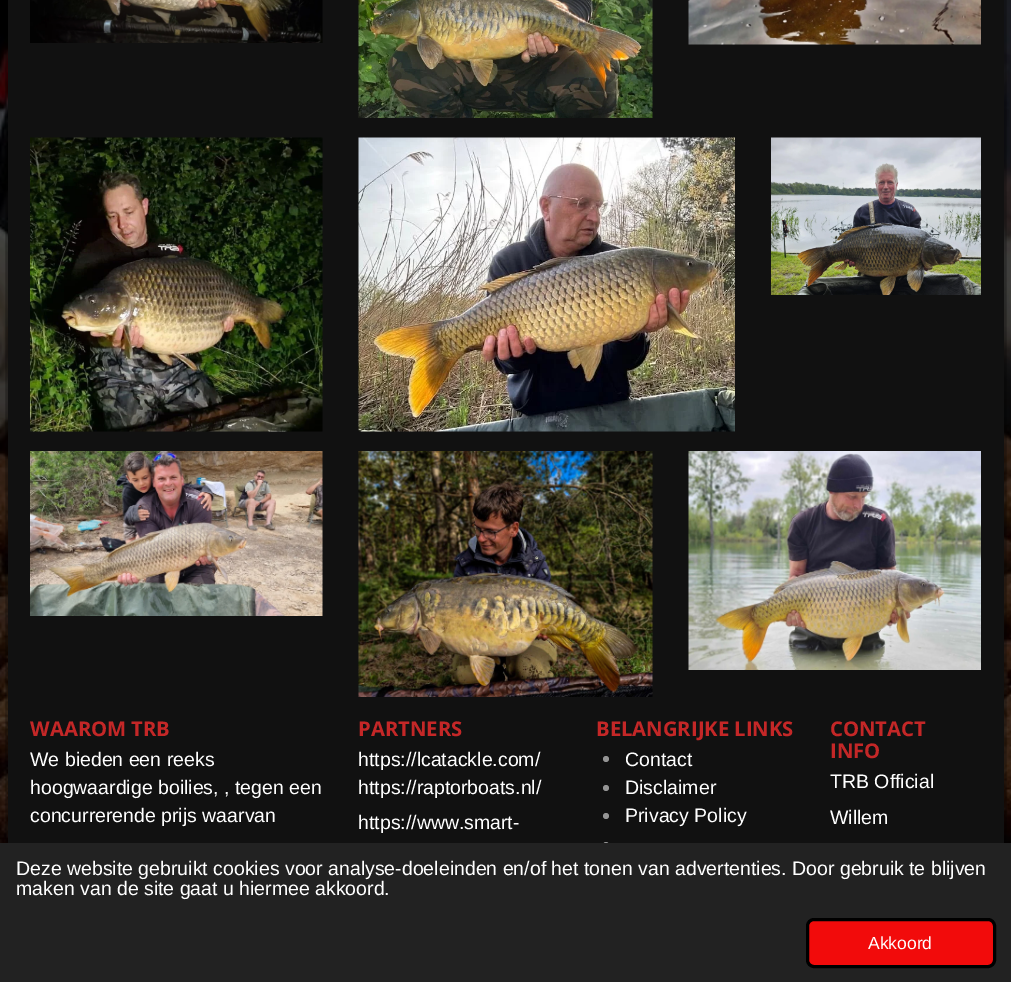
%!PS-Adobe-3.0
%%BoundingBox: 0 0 1011 982
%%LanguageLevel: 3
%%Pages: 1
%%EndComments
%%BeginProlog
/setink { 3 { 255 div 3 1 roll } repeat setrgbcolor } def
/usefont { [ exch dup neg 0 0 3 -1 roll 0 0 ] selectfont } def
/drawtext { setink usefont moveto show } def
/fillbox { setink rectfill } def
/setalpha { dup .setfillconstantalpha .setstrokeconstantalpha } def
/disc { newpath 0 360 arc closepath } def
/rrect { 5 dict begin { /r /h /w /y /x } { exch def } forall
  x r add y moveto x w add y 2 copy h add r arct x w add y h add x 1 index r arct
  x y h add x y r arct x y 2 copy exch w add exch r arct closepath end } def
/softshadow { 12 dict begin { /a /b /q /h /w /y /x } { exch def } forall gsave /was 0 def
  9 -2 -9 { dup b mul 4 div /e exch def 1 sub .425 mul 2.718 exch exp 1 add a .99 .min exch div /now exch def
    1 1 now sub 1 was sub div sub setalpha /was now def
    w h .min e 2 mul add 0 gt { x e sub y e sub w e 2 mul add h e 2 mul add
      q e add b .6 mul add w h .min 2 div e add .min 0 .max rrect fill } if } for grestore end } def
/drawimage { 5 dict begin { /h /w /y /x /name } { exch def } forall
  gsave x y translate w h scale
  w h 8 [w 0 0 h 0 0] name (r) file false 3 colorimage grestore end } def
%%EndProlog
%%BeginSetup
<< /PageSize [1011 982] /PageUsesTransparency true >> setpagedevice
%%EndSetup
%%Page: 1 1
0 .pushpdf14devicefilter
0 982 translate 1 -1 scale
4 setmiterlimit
0 0 1011 982 255 255 255 fillbox
(assets/img1.rgb) 0 0 1011 843 drawimage
0 0 0 setink
8 -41 996 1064 8 11 1 softshadow
8 0 996 843 17 17 17 fillbox
(assets/img2.rgb) 30 0 293 43 drawimage
(assets/img3.rgb) 358 0 295 118 drawimage
(assets/img4.rgb) 688 0 293 45 drawimage
(assets/img5.rgb) 30 137 293 295 drawimage
(assets/img6.rgb) 358 137 377 295 drawimage
(assets/img7.rgb) 771 137 210 158 drawimage
(assets/img8.rgb) 30 451 293 165 drawimage
(assets/img9.rgb) 358 451 295 246 drawimage
(assets/img10.rgb) 688 451 293 219 drawimage
(WAAROM TRB) 30 736 /OpenSans-Bold 20.25 196 39 39 drawtext
(We bieden een reeks) 30 766 /LiberationSans-Regular 19.5 255 255 255 drawtext
(hoogwaardige boilies, , tegen een) 30 794 /LiberationSans-Regular 19.5 255 255 255 drawtext
(concurrerende prijs waarvan) 30 822 /LiberationSans-Regular 19.5 255 255 255 drawtext
(PARTNERS) 358 736 /OpenSans-Bold 20.25 196 39 39 drawtext
(https://lcatackle.com/) 358 766 /LiberationSans-Regular 19.5 255 255 255 drawtext
(https://raptorboats.nl/) 358 794 /LiberationSans-Regular 19.5 255 255 255 drawtext
(https://www.smart-) 358 829 /LiberationSans-Regular 19.5 255 255 255 drawtext
(BELANGRIJKE LINKS) 596 736 /OpenSans-Bold 20.25 196 39 39 drawtext
148 148 148 setink
606 759 3 disc fill
(Contact) 625 766 /LiberationSans-Regular 19.5 255 255 255 drawtext
148 148 148 setink
606 788 3 disc fill
(Disclaimer) 625 794 /LiberationSans-Regular 19.5 255 255 255 drawtext
148 148 148 setink
606 816 3 disc fill
(Privacy Policy) 625 822 /LiberationSans-Regular 19.5 255 255 255 drawtext
148 148 148 setink
606 845 3 disc fill
(CONTACT) 830 736 /OpenSans-Bold 20.25 196 39 39 drawtext
(INFO) 830 758 /OpenSans-Bold 20.25 196 39 39 drawtext
(TRB Official) 830 788 /LiberationSans-Regular 19.5 255 255 255 drawtext
(Willem) 830 824 /LiberationSans-Regular 19.5 255 255 255 drawtext
0 843 1011 139 34 34 34 fillbox
(Deze website gebruikt cookies voor analyse-doeleinden en/of het tonen van advertenties. Door gebruik te blijven) 16 875 /LiberationSans-Regular 19.5 255 255 255 drawtext
(maken van de site gaat u hiermee akkoord.) 16 895 /LiberationSans-Regular 19.5 255 255 255 drawtext
242 11 11 setink
807.5 919.5 187 47 6.5 rrect gsave fill grestore
0 0 0 setink
3 setlinewidth
stroke
(Akkoord) 868 949 /LiberationSans-Regular 17.5 255 255 255 drawtext
.poppdf14devicefilter showpage
%%EOF
